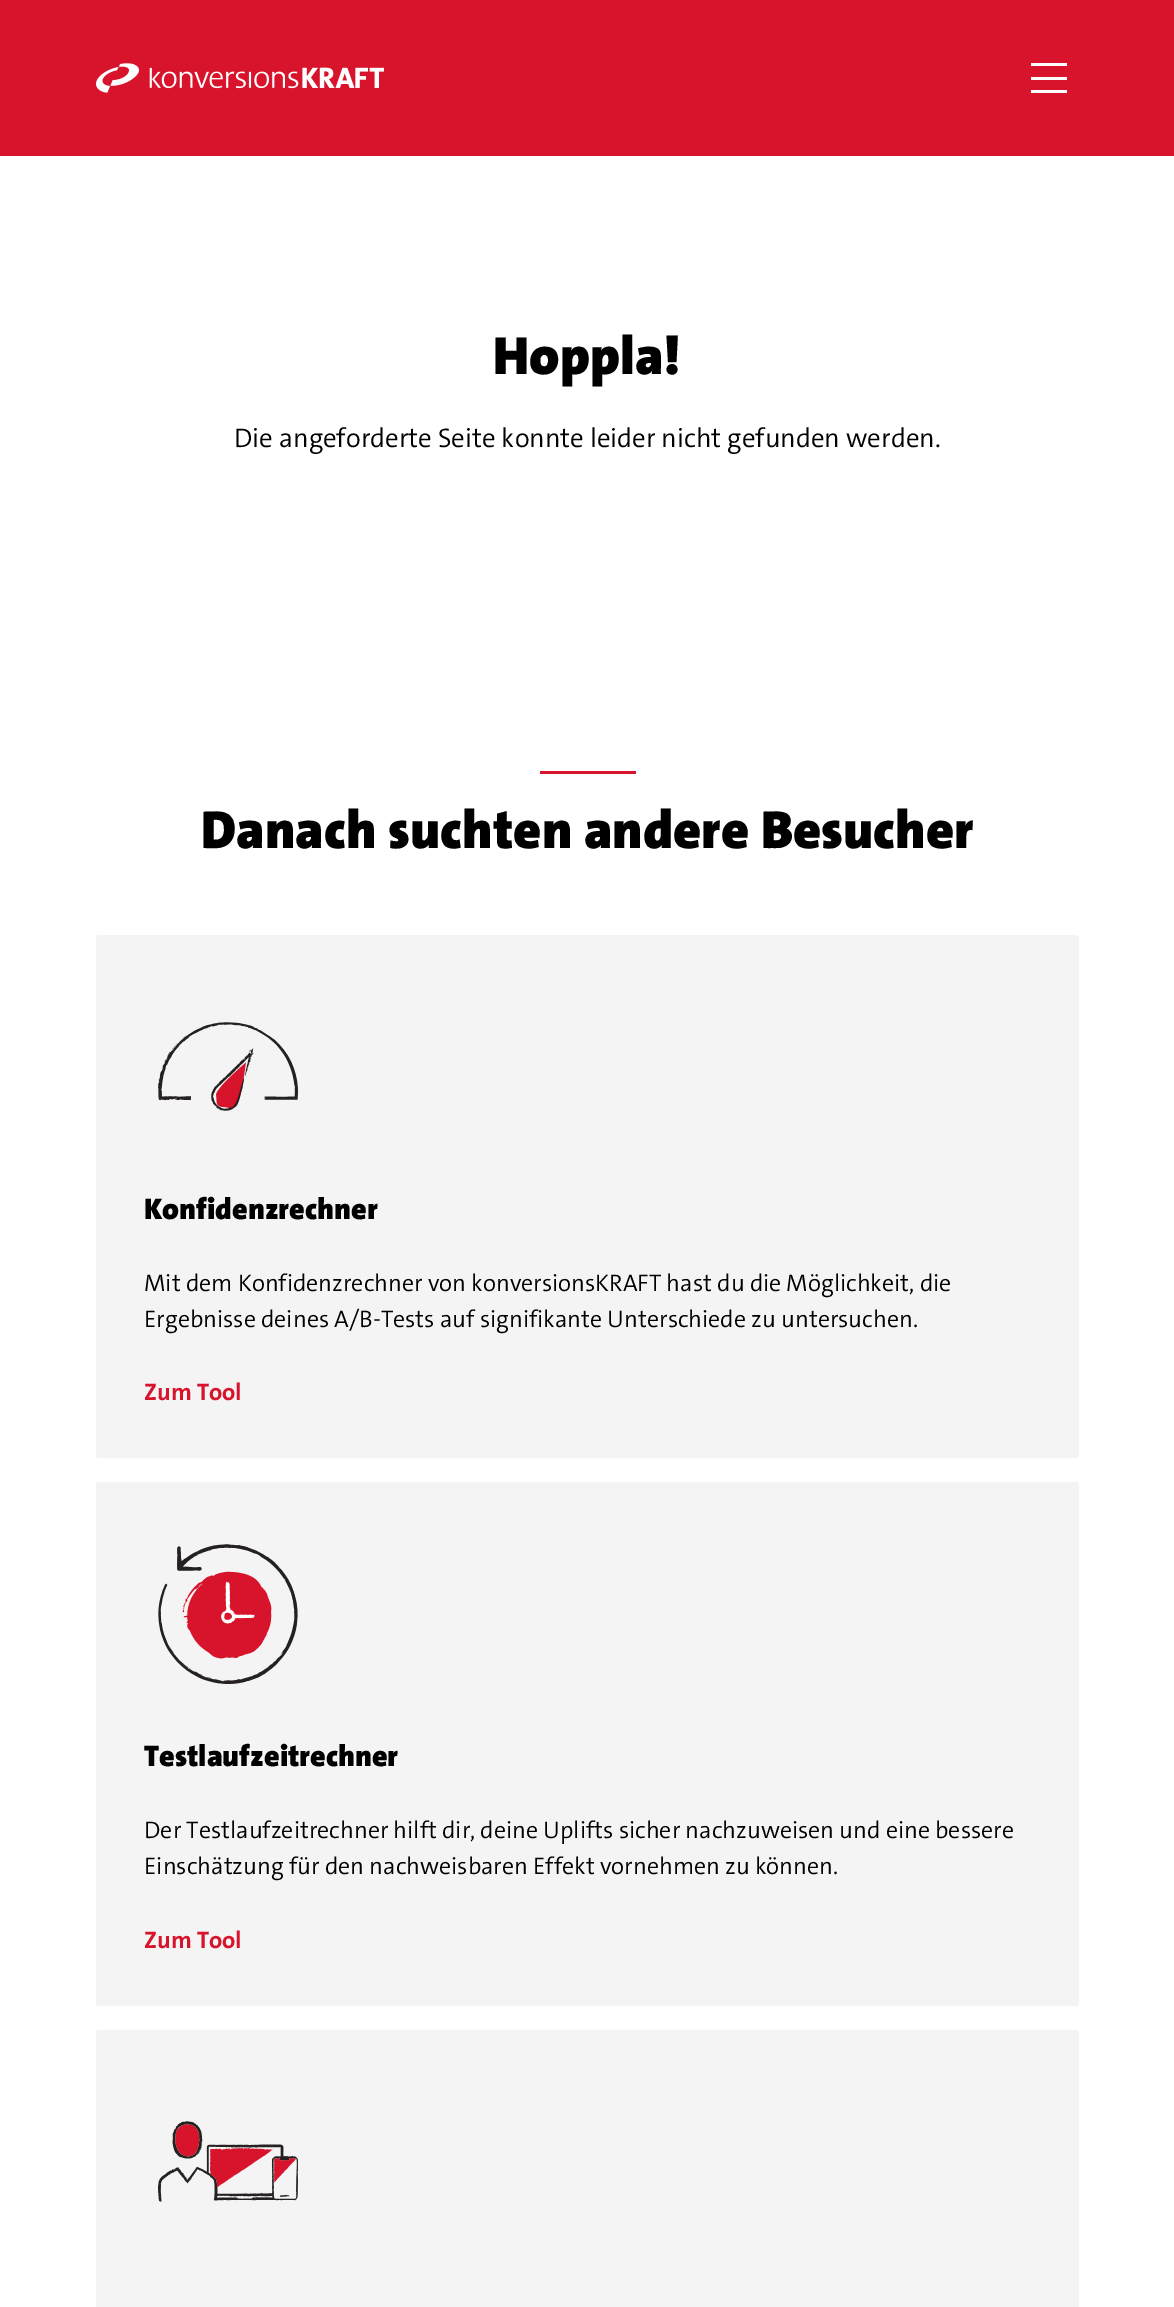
%!PS-Adobe-3.0
%%BoundingBox: 0 0 1174 2307
%%LanguageLevel: 3
%%Pages: 1
%%EndComments
%%BeginProlog
/setink { 3 { 255 div 3 1 roll } repeat setrgbcolor } def
/usefont { [ exch dup neg 0 0 3 -1 roll 0 0 ] selectfont } def
/drawtext { setink usefont moveto show } def
/fillbox { setink rectfill } def
/rrect { 5 dict begin { /r /h /w /y /x } { exch def } forall
  x r add y moveto x w add y 2 copy h add r arct x w add y h add x 1 index r arct
  x y h add x y r arct x y 2 copy exch w add exch r arct closepath end } def
/drawimage { 5 dict begin { /h /w /y /x /name } { exch def } forall
  gsave x y translate w h scale
  w h 8 [w 0 0 h 0 0] name (r) file false 3 colorimage grestore end } def
%%EndProlog
%%BeginSetup
<< /PageSize [1174 2307] >> setpagedevice
%%EndSetup
%%Page: 1 1
0 2307 translate 1 -1 scale
4 setmiterlimit
0 0 1174 2307 255 255 255 fillbox
0 0 1174 156 216 20 44 fillbox
(assets/img1.rgb) 96 63 288 30 drawimage
1031 63 36 3 255 255 255 fillbox
1031 77 36 3 255 255 255 fillbox
1031 90 36 3 255 255 255 fillbox
(Hoppla!) 493 374 /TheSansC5-Black 54 0 0 0 drawtext
(Die angeforderte Seite konnte leider nicht gefunden werden.) 234 447 /TheSansC5-Light 27 0 0 0 drawtext
540 771 96 3 216 20 44 fillbox
(Danach suchten andere Besucher) 201 848 /TheSansC5-Black 54 0 0 0 drawtext
244 244 244 setink
96 935 983 523 3 rrect fill
(assets/img2.rgb) 158 1022 140 89 drawimage
(Konfidenzrechner) 144 1219 /TheSansC5-Black 30 0 0 0 drawtext
(Mit dem Konfidenzrechner von konversionsKRAFT hast du die Möglichkeit, die) 144 1291 /TheSansC5-Light 24 0 0 0 drawtext
(Ergebnisse deines A/B-Tests auf signifikante Unterschiede zu untersuchen.) 144 1327 /TheSansC5-Light 24 0 0 0 drawtext
(Zum Tool) 144 1400 /TheSansC5-Bold 24 216 20 44 drawtext
244 244 244 setink
96 1482 983 524 3 rrect fill
(assets/img3.rgb) 158 1544 140 140 drawimage
(Testlaufzeitrechner) 144 1766 /TheSansC5-Black 30 0 0 0 drawtext
(Der Testlaufzeitrechner hilft dir, deine Uplifts sicher nachzuweisen und eine bessere) 144 1838 /TheSansC5-Light 24 0 0 0 drawtext
(Einschätzung für den nachweisbaren Effekt vornehmen zu können.) 144 1874 /TheSansC5-Light 24 0 0 0 drawtext
(Zum Tool) 144 1948 /TheSansC5-Bold 24 216 20 44 drawtext
244 244 244 setink
96 2030 983 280 3 rrect fill
(assets/img4.rgb) 158 2121 140 81 drawimage
showpage
%%EOF
